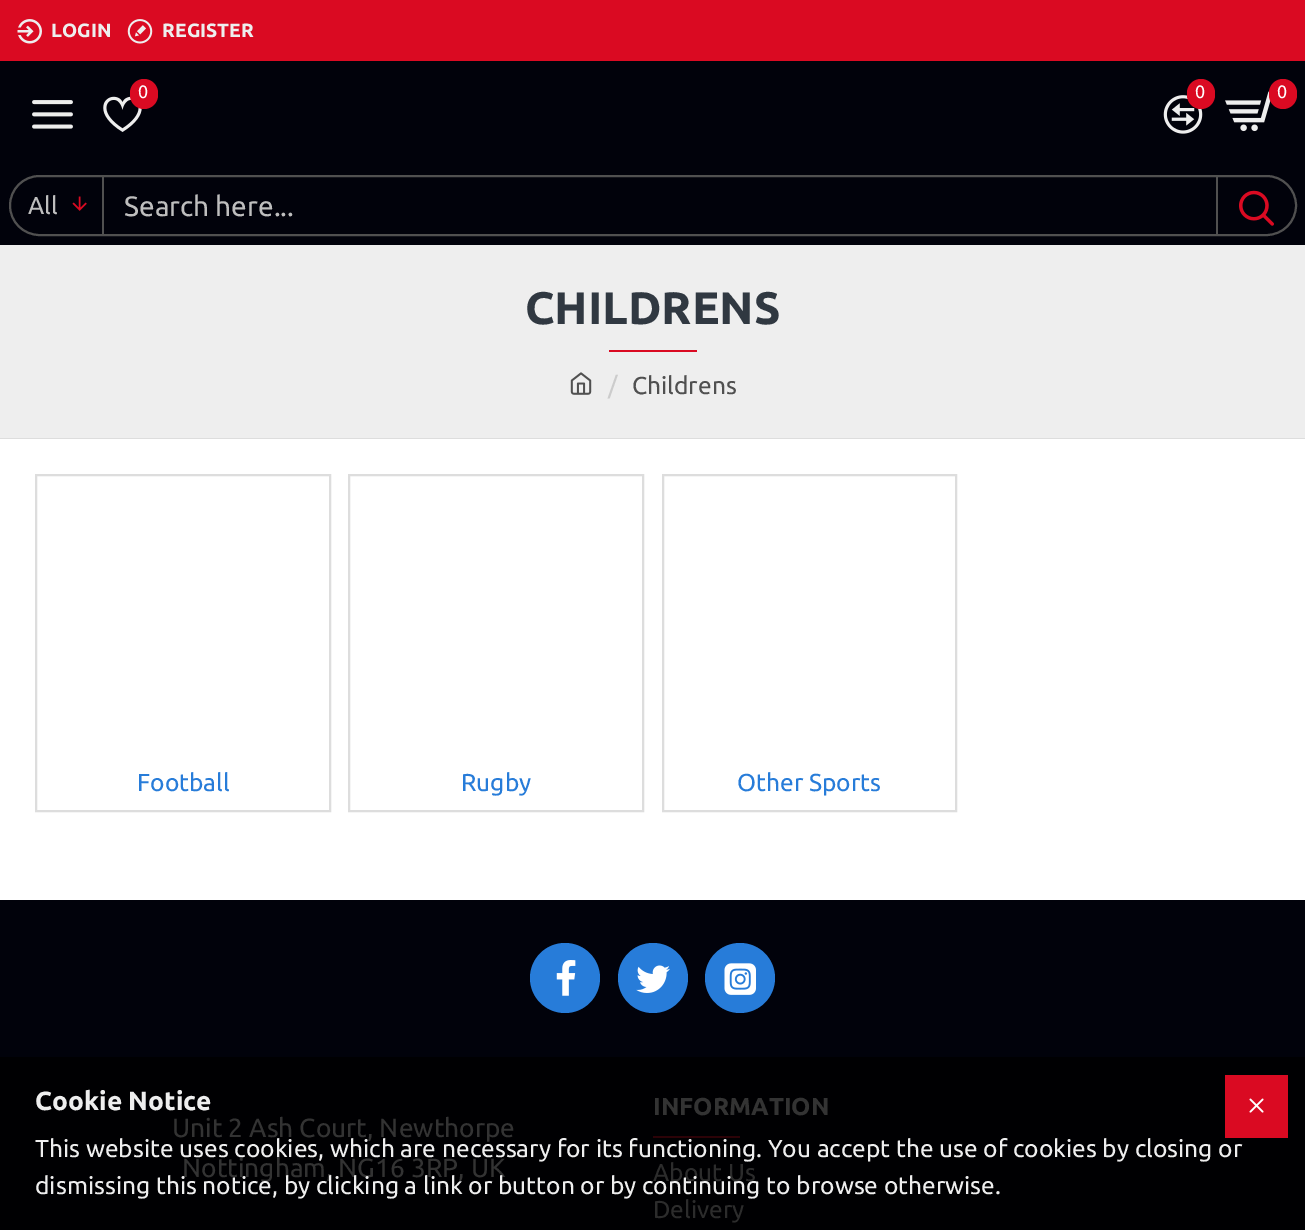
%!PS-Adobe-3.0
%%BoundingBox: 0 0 1305 1230
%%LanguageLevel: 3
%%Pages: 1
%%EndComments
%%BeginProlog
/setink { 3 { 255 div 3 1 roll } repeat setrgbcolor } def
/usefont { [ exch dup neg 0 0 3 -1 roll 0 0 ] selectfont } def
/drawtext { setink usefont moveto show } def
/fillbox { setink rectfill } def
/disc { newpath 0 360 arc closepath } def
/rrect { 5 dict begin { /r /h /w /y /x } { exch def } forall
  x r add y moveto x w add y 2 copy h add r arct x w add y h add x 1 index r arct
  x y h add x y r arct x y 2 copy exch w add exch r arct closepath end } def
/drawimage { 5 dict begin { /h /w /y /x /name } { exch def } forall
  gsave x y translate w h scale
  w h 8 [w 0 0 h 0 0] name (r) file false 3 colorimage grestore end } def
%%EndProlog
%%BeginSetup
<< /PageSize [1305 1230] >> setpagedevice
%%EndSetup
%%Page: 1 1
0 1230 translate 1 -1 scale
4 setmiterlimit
0 0 1305 1230 255 255 255 fillbox
0 0 1305 61 218 10 34 fillbox
(assets/img1.rgb) 17 19 25 25 drawimage
(LOGIN) 51 37 /Ubuntu-Bold 19.25 238 238 238 drawtext
(assets/img2.rgb) 127 19 26 25 drawimage
(REGISTER) 162 37 /Ubuntu-Bold 19.25 238 238 238 drawtext
0 61 1305 184 1 2 11 fillbox
(assets/img3.rgb) 103 96 39 36 drawimage
218 10 34 setink
130 79 28 30 14 rrect fill
(0) 138 98 /Ubuntu-Regular 18 255 255 255 drawtext
(assets/img4.rgb) 1163 95 40 39 drawimage
218 10 34 setink
1187 79 28 30 14 rrect fill
(0) 1195 98 /Ubuntu-Regular 18 255 255 255 drawtext
(assets/img5.rgb) 1225 91 46 41 drawimage
218 10 34 setink
1269 79 28 30 14 rrect fill
(0) 1277 98 /Ubuntu-Regular 18 255 255 255 drawtext
(assets/img6.rgb) 32 100 41 29 drawimage
80 80 80 setink
2 setlinewidth
10 176 1286 59 29.5 rrect stroke
102 177 2 58 80 80 80 fillbox
(All) 28 214 /Ubuntu-Regular 24.5 190 190 190 drawtext
(assets/img7.rgb) 72 196 15 15 drawimage
(Search here...) 124 216 /Ubuntu-Regular 28 190 190 190 drawtext
1216 177 2 58 80 80 80 fillbox
(assets/img8.rgb) 1239 190 35 36 drawimage
0 245 1305 193 238 238 238 fillbox
(CHILDRENS) 525 324 /Ubuntu-Bold 45.5 48 56 65 drawtext
609 350 88 2 218 10 34 fillbox
0 438 1305 1 221 221 221 fillbox
(assets/img9.rgb) 570 372 22 23 drawimage
(/) 608 394 /Ubuntu-Regular 24.5 204 204 204 drawtext
(Childrens) 632 394 /Ubuntu-Regular 24.5 80 80 80 drawtext
221 221 221 setink
36 475 294 336 rectstroke
(Football) 137 791 /Ubuntu-Regular 24.5 39 124 217 drawtext
221 221 221 setink
349 475 294 336 rectstroke
(Rugby) 461 791 /Ubuntu-Regular 24.5 39 124 217 drawtext
221 221 221 setink
663 475 293 336 rectstroke
(Other Sports) 737 791 /Ubuntu-Regular 24.5 39 124 217 drawtext
0 900 1305 157 1 2 11 fillbox
0 1057 1305 173 0 0 2 fillbox
39 124 217 setink
565 978 35 disc fill
(assets/img10.rgb) 556 960 20 36 drawimage
653 978 35 disc fill
(assets/img11.rgb) 636 965 34 28 drawimage
740 978 35 disc fill
(assets/img12.rgb) 724 963 32 32 drawimage
(Unit 2 Ash Court, Newthorpe) 172 1137 /Ubuntu-Regular 26.25 51 51 51 drawtext
(Nottingham, NG16 3RP, UK) 182 1177 /Ubuntu-Regular 26.25 51 51 51 drawtext
(INFORMATION) 653 1115 /Ubuntu-Bold 24.5 51 51 51 drawtext
653 1136 87 2 44 2 7 fillbox
(About Us) 653 1181 /Ubuntu-Regular 24.5 44 44 44 drawtext
(Delivery) 653 1218 /Ubuntu-Regular 24.5 44 44 44 drawtext
(Cookie Notice) 35 1110 /Ubuntu-Bold 26.25 238 238 238 drawtext
(This website uses cookies, which are necessary for its functioning. You accept the use of cookies by closing or) 35 1157 /Ubuntu-Regular 24.5 238 238 238 drawtext
(dismissing this notice, by clicking a link or button or by continuing to browse otherwise.) 35 1194 /Ubuntu-Regular 24.5 238 238 238 drawtext
1225 1075 63 63 218 10 34 fillbox
(assets/img13.rgb) 1249 1098 15 15 drawimage
showpage
%%EOF
